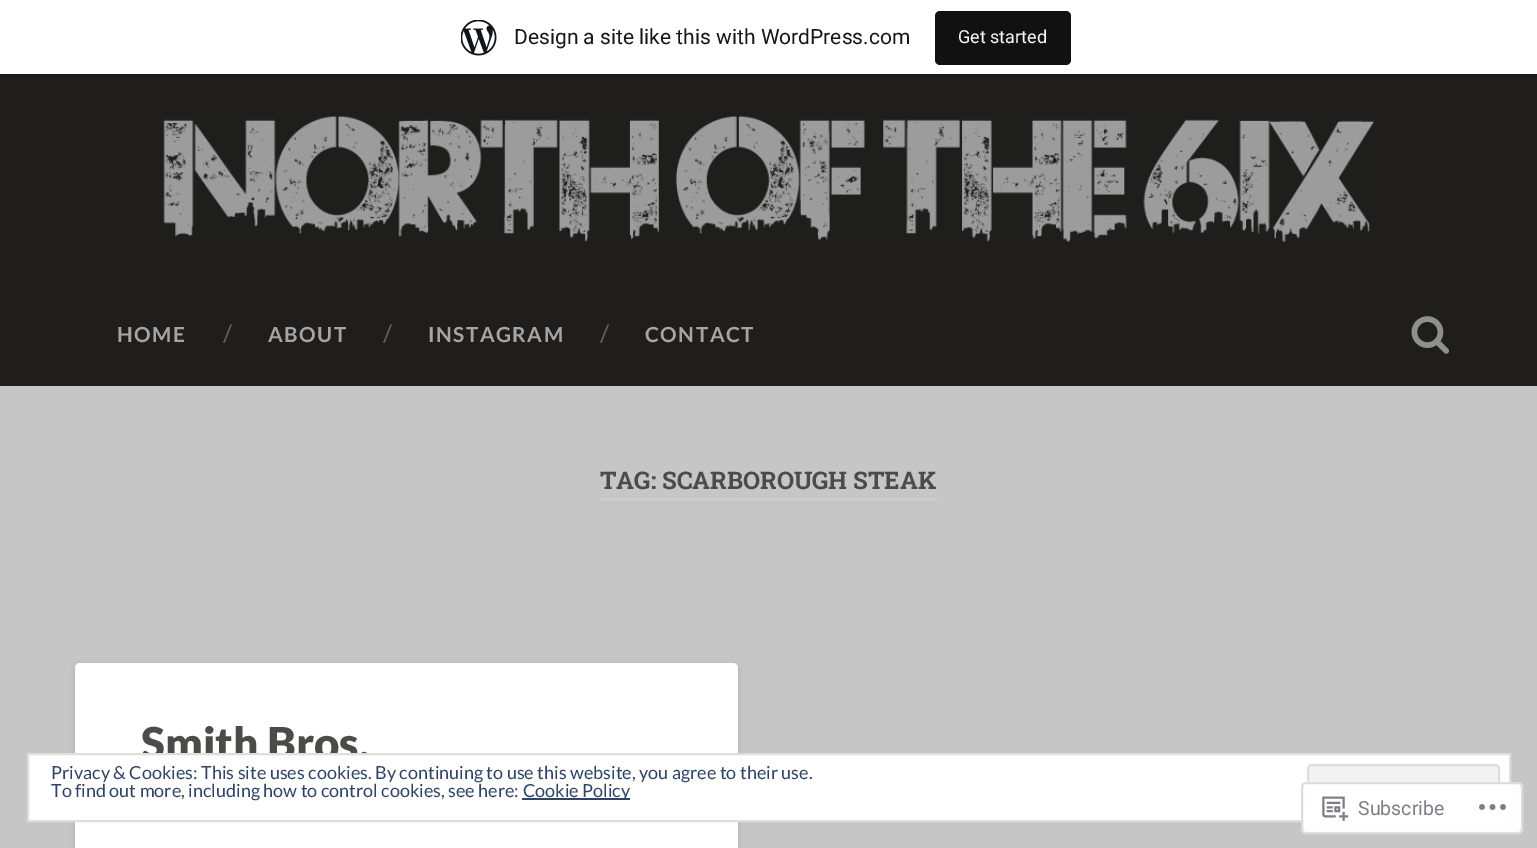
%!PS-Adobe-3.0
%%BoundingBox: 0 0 1537 848
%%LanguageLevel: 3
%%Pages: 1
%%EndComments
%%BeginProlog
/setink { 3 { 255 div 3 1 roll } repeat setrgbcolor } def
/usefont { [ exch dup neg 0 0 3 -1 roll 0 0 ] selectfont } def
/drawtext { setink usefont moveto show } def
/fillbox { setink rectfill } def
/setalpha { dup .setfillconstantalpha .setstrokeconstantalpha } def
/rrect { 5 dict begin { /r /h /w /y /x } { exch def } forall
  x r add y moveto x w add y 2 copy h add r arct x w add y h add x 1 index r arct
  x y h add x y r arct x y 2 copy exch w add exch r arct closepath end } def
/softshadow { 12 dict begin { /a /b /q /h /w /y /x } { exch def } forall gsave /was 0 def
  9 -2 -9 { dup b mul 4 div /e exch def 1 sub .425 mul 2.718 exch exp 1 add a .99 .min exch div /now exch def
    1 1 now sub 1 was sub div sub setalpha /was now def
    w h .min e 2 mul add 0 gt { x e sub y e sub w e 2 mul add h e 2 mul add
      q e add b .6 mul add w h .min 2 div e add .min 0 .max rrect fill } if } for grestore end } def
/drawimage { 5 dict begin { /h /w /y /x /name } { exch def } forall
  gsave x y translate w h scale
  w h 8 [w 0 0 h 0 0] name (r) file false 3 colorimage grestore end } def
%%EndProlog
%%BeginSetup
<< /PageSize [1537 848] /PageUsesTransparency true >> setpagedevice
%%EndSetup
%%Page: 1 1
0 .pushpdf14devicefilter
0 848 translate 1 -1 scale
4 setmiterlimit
0 0 1537 848 198 198 198 fillbox
0 74 1537 312 31 30 29 fillbox
28 27 26 setink
2 74 moveto 2 78 lineto 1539 78 lineto 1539 5 lineto 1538 5 lineto 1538 74 lineto closepath fill
0 0 1537 74 255 255 255 fillbox
(assets/img1.rgb) 461 20 36 36 drawimage
(Design a site like this with WordPress.com) 514 44 /Roboto-Regular 21 23 23 23 drawtext
17 17 17 setink
935 11 136 54 5 rrect fill
(Get started) 958 43 /Roboto-Regular 18 246 247 247 drawtext
(assets/img2.rgb) 163 116 1212 127 drawimage
/Lato-Bold 20.75 usefont
165 165 165 setink
117 342 moveto 1.5 0 (HOME) ashow
(/) 223 342 /Lato-Regular 24 98 98 97 drawtext
/Lato-Bold 20.75 usefont
165 165 165 setink
268 342 moveto 1.5 0 (ABOUT) ashow
(/) 383 342 /Lato-Regular 24 98 98 97 drawtext
/Lato-Bold 20.75 usefont
165 165 165 setink
428 342 moveto 1.5 0 (INSTAGRAM) ashow
(/) 600 342 /Lato-Regular 24 98 98 97 drawtext
/Lato-Bold 20.75 usefont
165 165 165 setink
645 342 moveto 1.5 0 (CONTACT) ashow
(assets/img3.rgb) 1411 316 38 38 drawimage
600 498 338 3 204 204 204 fillbox
(TAG: SCARBOROUGH STEAK) 600 489 /RobotoSlab-Bold 24.25 76 75 71 drawtext
0 0 0 setink
75 665 663 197 5 3 0.1 softshadow
255 255 255 setink
75 663 663 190 5 rrect fill
(Smith Bros.) 141 759 /Lato-Black 44 76 75 71 drawtext
255 255 255 setink
28 754 moveto 1510 754 lineto 1510 821 lineto 28 821 lineto closepath gsave fill grestore
222 222 222 setink
2 setlinewidth
stroke
(Privacy & Cookies: This site uses cookies. By continuing to use this website, you agree to their use.) 51 779 /Lato-Regular 18 46 68 103 drawtext
243 243 243 setink
1308 765 191 46 4 rrect gsave fill grestore
222 222 222 setink
stroke
(To find out more, including how to control cookies, see here:) 51 797 /Lato-Regular 18 46 68 103 drawtext
522 798 108 2 46 68 103 fillbox
(Cookie Policy) 523 797 /Lato-Regular 18 46 68 103 drawtext
0.98 setalpha
255 255 255 setink
1301 782 222 52 5 rrect fill
220 220 222 setink
1302 783 220 50 4 rrect stroke
1 setalpha
(assets/img4.rgb) 1322 796 27 25 drawimage
(Subscribe) 1358 815 /Roboto-Regular 19.5 123 127 132 drawtext
(assets/img5.rgb) 1479 804 27 6 drawimage
.poppdf14devicefilter showpage
%%EOF
